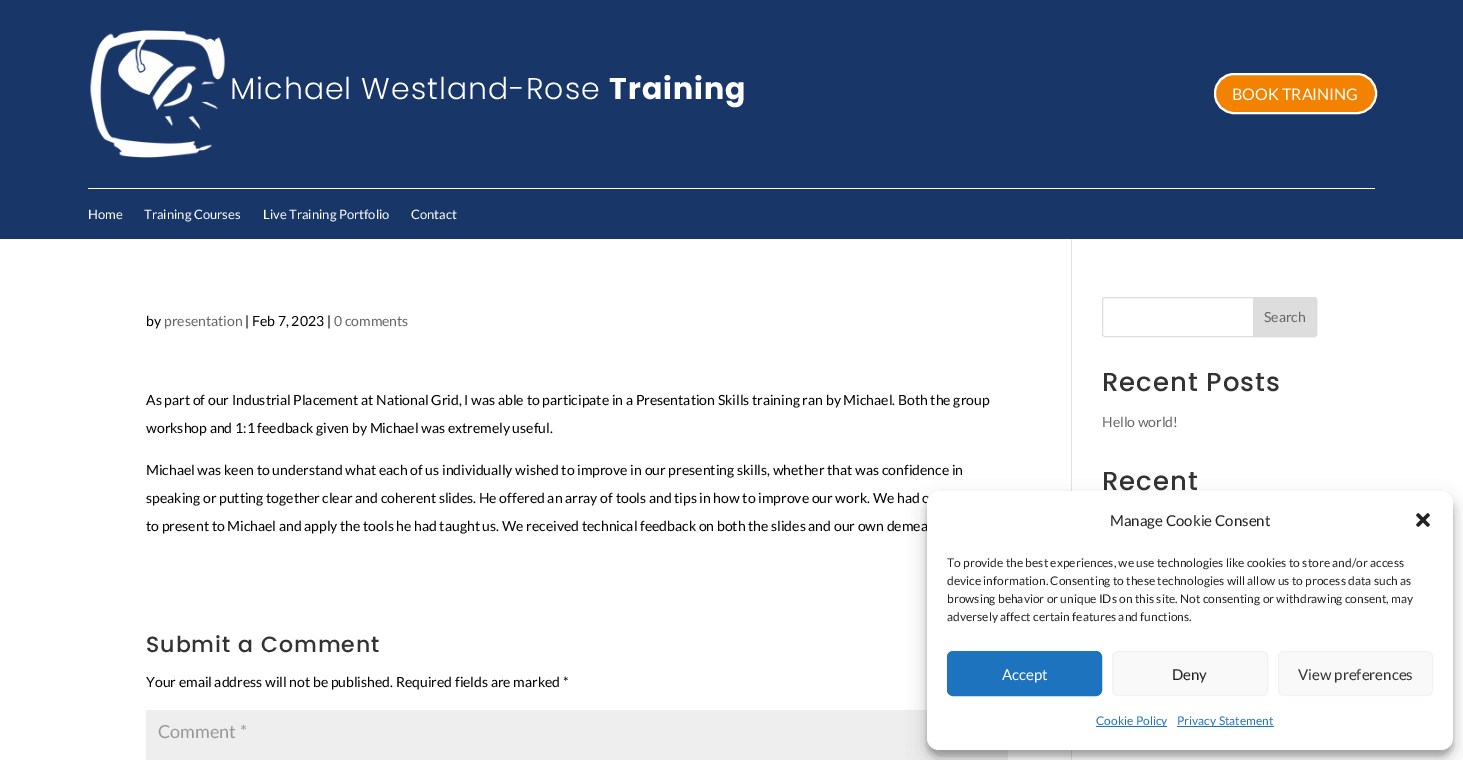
%!PS-Adobe-3.0
%%BoundingBox: 0 0 1463 760
%%LanguageLevel: 3
%%Pages: 1
%%EndComments
%%BeginProlog
/setink { 3 { 255 div 3 1 roll } repeat setrgbcolor } def
/usefont { [ exch dup neg 0 0 3 -1 roll 0 0 ] selectfont } def
/drawtext { setink usefont moveto show } def
/fillbox { setink rectfill } def
/setalpha { dup .setfillconstantalpha .setstrokeconstantalpha } def
/rrect { 5 dict begin { /r /h /w /y /x } { exch def } forall
  x r add y moveto x w add y 2 copy h add r arct x w add y h add x 1 index r arct
  x y h add x y r arct x y 2 copy exch w add exch r arct closepath end } def
/softshadow { 12 dict begin { /a /b /q /h /w /y /x } { exch def } forall gsave /was 0 def
  9 -2 -9 { dup b mul 4 div /e exch def 1 sub .425 mul 2.718 exch exp 1 add a .99 .min exch div /now exch def
    1 1 now sub 1 was sub div sub setalpha /was now def
    w h .min e 2 mul add 0 gt { x e sub y e sub w e 2 mul add h e 2 mul add
      q e add b .6 mul add w h .min 2 div e add .min 0 .max rrect fill } if } for grestore end } def
/drawimage { 5 dict begin { /h /w /y /x /name } { exch def } forall
  gsave x y translate w h scale
  w h 8 [w 0 0 h 0 0] name (r) file false 3 colorimage grestore end } def
%%EndProlog
%%BeginSetup
<< /PageSize [1463 760] /PageUsesTransparency true >> setpagedevice
%%EndSetup
%%Page: 1 1
0 .pushpdf14devicefilter
0 760 translate 1 -1 scale
4 setmiterlimit
0 0 1463 760 255 255 255 fillbox
0 0 1463 239 25 54 105 fillbox
(assets/img1.rgb) 90 30 135 128 drawimage
/Poppins-Light 30 usefont
255 255 255 setink
230 99 moveto 1 0 (Michael Westland-Rose) ashow
/Poppins-Bold 30 usefont
609 99 moveto 1 0 (Training) ashow
243 130 0 setink
1215 74 161 39 19 rrect gsave fill grestore
255 255 255 setink
2 setlinewidth
stroke
(BOOK TRAINING) 1232 100 /Lato-Regular 16 255 255 255 drawtext
88 188 1287 1 255 255 255 fillbox
(Home) 88 219 /Lato-Regular 13 255 255 255 drawtext
(Training Courses) 144 219 /Lato-Regular 13 255 255 255 drawtext
(Live Training Portfolio) 263 219 /Lato-Regular 13 255 255 255 drawtext
(Contact) 411 219 /Lato-Regular 13 255 255 255 drawtext
1071 239 1 521 226 226 226 fillbox
(by) 146 326 /Lato-Regular 14 0 0 0 drawtext
(presentation) 164 326 /Lato-Regular 14 102 102 102 drawtext
(| Feb 7, 2023 |) 245 326 /Lato-Regular 14 0 0 0 drawtext
(0 comments) 334 326 /Lato-Regular 14 102 102 102 drawtext
(As part of our Industrial Placement at National Grid, I was able to participate in a Presentation Skills training ran by Michael. Both the group) 146 405 /Lato-Regular 14 0 0 0 drawtext
(workshop and 1:1 feedback given by Michael was extremely useful.) 146 433 /Lato-Regular 14 0 0 0 drawtext
(Michael was keen to understand what each of us individually wished to improve in our presenting skills, whether that was confidence in) 146 475 /Lato-Regular 14 0 0 0 drawtext
(speaking or putting together clear and coherent slides. He offered an array of tools and tips in how to improve our work. We had o) 146 503 /Lato-Regular 14 0 0 0 drawtext
(to present to Michael and apply the tools he had taught us. We received technical feedback on both the slides and our own demea) 146 531 /Lato-Regular 14 0 0 0 drawtext
/Poppins-Medium 22 usefont
51 51 51 setink
146 652 moveto 1 0 (Submit a Comment) ashow
(Your email address will not be published. Required fields are marked *) 146 687 /Lato-Regular 14 0 0 0 drawtext
146 710 862 50 238 238 238 fillbox
(Comment *) 158 738 /Lato-Regular 18 153 153 153 drawtext
221 221 221 setink
1 setlinewidth
1102.5 297.5 214 39 2.5 rrect stroke
1253.5 297.5 moveto 1314 297.5 lineto 1315.5 297.5 1316.5 298.5 1316.5 300 curveto 1316.5 334 lineto 1316.5 335.5 1315.5 336.5 1314 336.5 curveto 1253.5 336.5 lineto closepath gsave fill grestore
stroke
(Search) 1264 322 /Lato-Regular 14 102 102 102 drawtext
/Poppins-Medium 26 usefont
51 51 51 setink
1102 391 moveto 1 0 (Recent Posts) ashow
(Hello world!) 1102 427 /Lato-Regular 14 102 102 102 drawtext
/Poppins-Medium 26 usefont
51 51 51 setink
1102 490 moveto 1 0 (Recent) ashow
0 0 0 setink
927 497 526 259 12 3 0.23 softshadow
927 501 526 259 12 10 0.19 softshadow
255 255 255 setink
927 491 526 259 12 rrect fill
(Manage Cookie Consent) 1110 526 /Lato-Regular 15 34 34 34 drawtext
(assets/img2.rgb) 1416 513 14 14 drawimage
(To provide the best experiences, we use technologies like cookies to store and/or access) 947 567 /Lato-Regular 12 34 34 34 drawtext
(device information. Consenting to these technologies will allow us to process data such as) 947 585 /Lato-Regular 12 34 34 34 drawtext
(browsing behavior or unique IDs on this site. Not consenting or withdrawing consent, may) 947 603 /Lato-Regular 12 34 34 34 drawtext
(adversely affect certain features and functions.) 947 621 /Lato-Regular 12 34 34 34 drawtext
30 115 190 setink
947.5 651.5 154 44 5.5 rrect gsave fill grestore
stroke
(Accept) 1002 680 /Lato-Regular 15 255 255 255 drawtext
249 249 249 setink
1112.5 651.5 155 44 5.5 rrect gsave fill grestore
242 242 242 setink
stroke
(Deny) 1172 680 /Lato-Regular 15 34 34 34 drawtext
249 249 249 setink
1278.5 651.5 154 44 5.5 rrect gsave fill grestore
242 242 242 setink
stroke
(View preferences) 1298 680 /Lato-Regular 15 51 51 51 drawtext
1096 726 71 1 30 115 190 fillbox
(Cookie Policy) 1096 725 /Lato-Regular 12 30 115 190 drawtext
1177 726 97 1 30 115 190 fillbox
(Privacy Statement) 1177 725 /Lato-Regular 12 30 115 190 drawtext
.poppdf14devicefilter showpage
%%EOF
